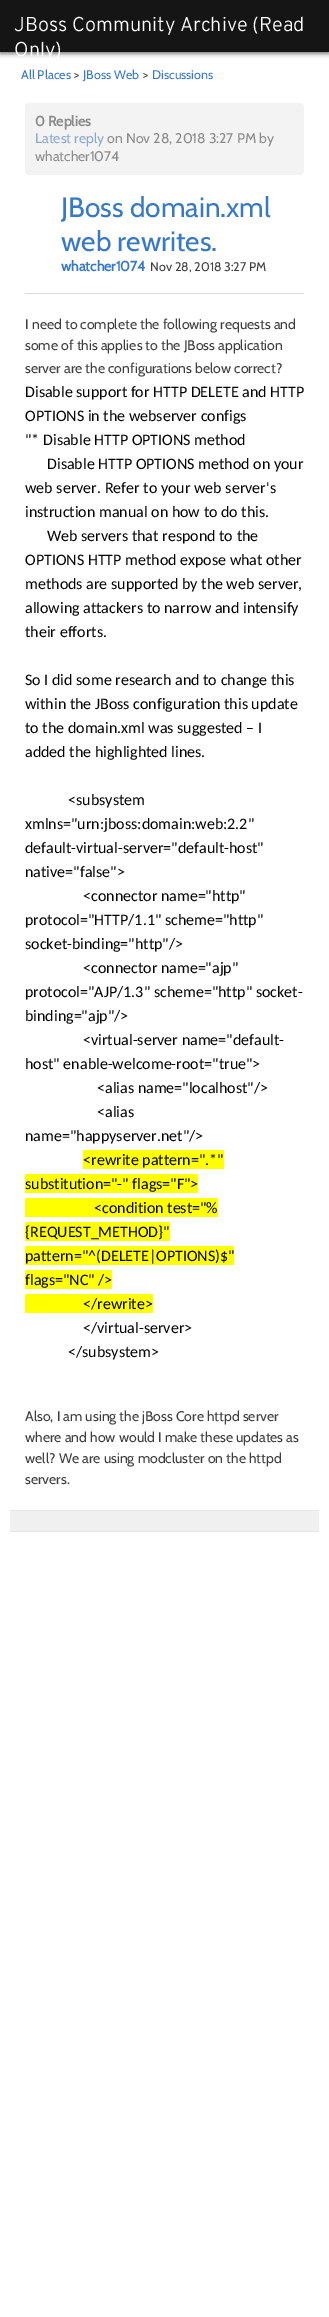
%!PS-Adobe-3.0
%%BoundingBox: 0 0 329 2317
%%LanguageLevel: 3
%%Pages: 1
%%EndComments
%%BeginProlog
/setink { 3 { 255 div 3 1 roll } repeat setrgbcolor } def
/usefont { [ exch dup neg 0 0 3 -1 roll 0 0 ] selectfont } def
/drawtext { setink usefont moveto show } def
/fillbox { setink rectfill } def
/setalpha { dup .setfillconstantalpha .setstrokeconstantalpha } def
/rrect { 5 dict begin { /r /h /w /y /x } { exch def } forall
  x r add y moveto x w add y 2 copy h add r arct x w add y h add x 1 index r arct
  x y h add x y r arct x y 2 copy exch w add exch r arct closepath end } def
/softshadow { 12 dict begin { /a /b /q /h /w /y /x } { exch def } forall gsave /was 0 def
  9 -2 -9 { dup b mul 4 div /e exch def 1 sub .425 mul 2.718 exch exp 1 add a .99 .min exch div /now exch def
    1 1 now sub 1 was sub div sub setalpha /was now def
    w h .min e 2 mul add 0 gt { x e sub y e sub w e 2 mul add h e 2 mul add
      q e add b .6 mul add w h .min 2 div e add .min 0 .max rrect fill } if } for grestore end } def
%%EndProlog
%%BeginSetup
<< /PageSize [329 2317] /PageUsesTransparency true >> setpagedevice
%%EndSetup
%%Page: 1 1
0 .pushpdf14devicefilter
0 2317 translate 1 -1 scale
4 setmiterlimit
0 0 329 2317 255 255 255 fillbox
0 0 0 setink
0 1 329 52 0 2.5 0.35 softshadow
0 1 329 52 0 2.5 0.35 softshadow
0 0 329 52 21 21 21 fillbox
(JBoss Community Archive \(Read) 14 31 /Overpass-Light 20 255 255 255 drawtext
(Only\)) 14 56 /Overpass-Light 20 255 255 255 drawtext
(All Places) 21 79 /Cabin-Regular 12.5 55 120 199 drawtext
(>) 74 79 /Cabin-Regular 12.5 61 61 61 drawtext
(JBoss Web) 83 79 /Cabin-Regular 12.5 55 120 199 drawtext
(>) 143 79 /Cabin-Regular 12.5 61 61 61 drawtext
(Discussions) 152 79 /Cabin-Regular 12.5 55 120 199 drawtext
243 243 243 setink
25 103 279 72 4 rrect fill
(0 Replies) 35 126 /Cabin-Bold 14 139 139 139 drawtext
(Latest reply) 35 143 /Cabin-Regular 14 140 169 205 drawtext
(on Nov 28, 2018 3:27 PM by) 107 143 /Cabin-Regular 14 139 139 139 drawtext
(whatcher1074) 35 161 /Cabin-Regular 14 139 139 139 drawtext
25 293 279 1 220 220 220 fillbox
gsave
61 190 243 68 rectclip
(JBoss domain.xml) 61 217 /Cabin-Regular 28 55 120 199 drawtext
grestore
(web rewrites.) 61 251 /Cabin-Regular 28 55 120 199 drawtext
(whatcher1074) 61 271 /Cabin-Bold 14 55 120 199 drawtext
(Nov 28, 2018 3:27 PM) 150 271 /Cabin-Regular 12.5 61 61 61 drawtext
(I need to complete the following requests and) 25 329 /Cabin-Regular 14 61 61 61 drawtext
(some of this applies to the JBoss application) 25 350 /Cabin-Regular 14 61 61 61 drawtext
(server are the configurations below correct?) 25 373 /Cabin-Regular 14 61 61 61 drawtext
(Disable support for HTTP DELETE and HTTP) 25 397 /Carlito-Regular 16 0 0 0 drawtext
(OPTIONS in the webserver configs) 25 421 /Carlito-Regular 16 0 0 0 drawtext
("* Disable HTTP OPTIONS method) 25 445 /Carlito-Regular 16 0 0 0 drawtext
(Disable HTTP OPTIONS method on your) 47 469 /Carlito-Regular 16 0 0 0 drawtext
(web server. Refer to your web server's) 25 493 /Carlito-Regular 16 0 0 0 drawtext
(instruction manual on how to do this.) 25 517 /Carlito-Regular 16 0 0 0 drawtext
(Web servers that respond to the) 47 541 /Carlito-Regular 16 0 0 0 drawtext
(OPTIONS HTTP method expose what other) 25 565 /Carlito-Regular 16 0 0 0 drawtext
(methods are supported by the web server,) 25 589 /Carlito-Regular 16 0 0 0 drawtext
(allowing attackers to narrow and intensify) 25 613 /Carlito-Regular 16 0 0 0 drawtext
(their efforts.) 25 637 /Carlito-Regular 16 0 0 0 drawtext
(So I did some research and to change this) 25 685 /Carlito-Regular 16 0 0 0 drawtext
(within the JBoss configuration this update) 25 709 /Carlito-Regular 16 0 0 0 drawtext
(to the domain.xml was suggested – I) 25 733 /Carlito-Regular 16 0 0 0 drawtext
(added the highlighted lines.) 25 757 /Carlito-Regular 16 0 0 0 drawtext
(<subsystem) 68 805 /Carlito-Regular 16 0 0 0 drawtext
(xmlns="urn:jboss:domain:web:2.2") 25 829 /Carlito-Regular 16 0 0 0 drawtext
(default-virtual-server="default-host") 25 853 /Carlito-Regular 16 0 0 0 drawtext
(native="false">) 25 877 /Carlito-Regular 16 0 0 0 drawtext
(<connector name="http") 83 901 /Carlito-Regular 16 0 0 0 drawtext
(protocol="HTTP/1.1" scheme="http") 25 925 /Carlito-Regular 16 0 0 0 drawtext
(socket-binding="http"/>) 25 949 /Carlito-Regular 16 0 0 0 drawtext
(<connector name="ajp") 83 973 /Carlito-Regular 16 0 0 0 drawtext
(protocol="AJP/1.3" scheme="http" socket-) 25 997 /Carlito-Regular 16 0 0 0 drawtext
(binding="ajp"/>) 25 1021 /Carlito-Regular 16 0 0 0 drawtext
(<virtual-server name="default-) 83 1045 /Carlito-Regular 16 0 0 0 drawtext
(host" enable-welcome-root="true">) 25 1069 /Carlito-Regular 16 0 0 0 drawtext
(<alias name="localhost"/>) 97 1093 /Carlito-Regular 16 0 0 0 drawtext
(<alias) 97 1117 /Carlito-Regular 16 0 0 0 drawtext
(name="happyserver.net"/>) 25 1141 /Carlito-Regular 16 0 0 0 drawtext
83 1150 141 19 255 255 0 fillbox
(<rewrite pattern=".*") 83 1165 /Carlito-Regular 16 0 0 0 drawtext
25 1174 173 19 255 255 0 fillbox
(substitution="-" flags="F">) 25 1189 /Carlito-Regular 16 0 0 0 drawtext
25 1198 193 19 255 255 0 fillbox
(<condition test="%) 94 1213 /Carlito-Regular 16 0 0 0 drawtext
25 1222 145 19 255 255 0 fillbox
({REQUEST_METHOD}") 25 1237 /Carlito-Regular 16 0 0 0 drawtext
25 1246 209 19 255 255 0 fillbox
(pattern="^\(DELETE|OPTIONS\)$") 25 1261 /Carlito-Regular 16 0 0 0 drawtext
25 1270 87 19 255 255 0 fillbox
(flags="NC" />) 25 1285 /Carlito-Regular 16 0 0 0 drawtext
25 1294 128 19 255 255 0 fillbox
(</rewrite>) 83 1309 /Carlito-Regular 16 0 0 0 drawtext
(</virtual-server>) 83 1333 /Carlito-Regular 16 0 0 0 drawtext
(</subsystem>) 68 1357 /Carlito-Regular 16 0 0 0 drawtext
(Also, I am using the jBoss Core httpd server) 25 1421 /Cabin-Regular 14 61 61 61 drawtext
(where and how would I make these updates as) 25 1442 /Cabin-Regular 14 61 61 61 drawtext
(well? We are using modcluster on the httpd) 25 1463 /Cabin-Regular 14 61 61 61 drawtext
(servers.) 25 1484 /Cabin-Regular 14 61 61 61 drawtext
10 1511 309 20 240 240 240 fillbox
10 1510 309 1 230 230 230 fillbox
10 1531 309 1 230 230 230 fillbox
.poppdf14devicefilter showpage
%%EOF
